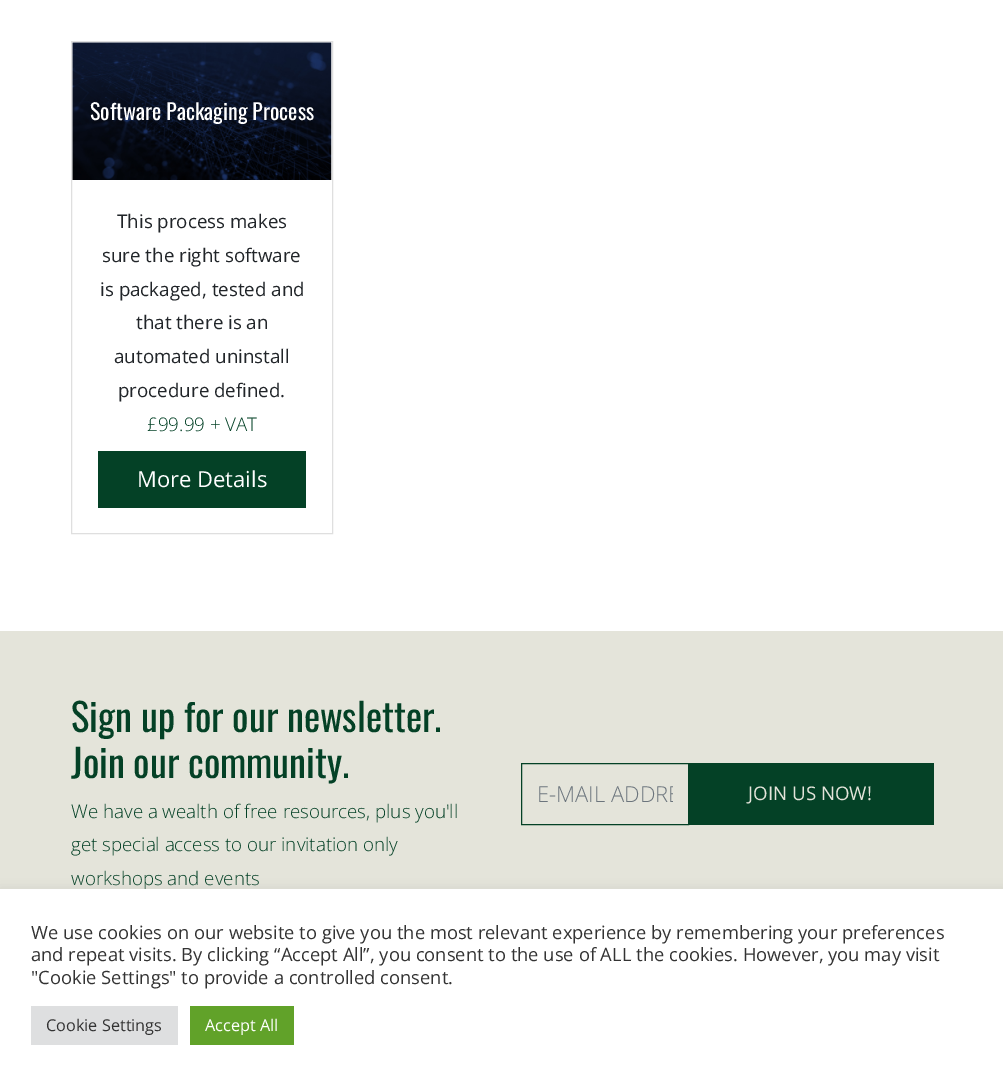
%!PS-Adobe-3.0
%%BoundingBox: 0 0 1003 1082
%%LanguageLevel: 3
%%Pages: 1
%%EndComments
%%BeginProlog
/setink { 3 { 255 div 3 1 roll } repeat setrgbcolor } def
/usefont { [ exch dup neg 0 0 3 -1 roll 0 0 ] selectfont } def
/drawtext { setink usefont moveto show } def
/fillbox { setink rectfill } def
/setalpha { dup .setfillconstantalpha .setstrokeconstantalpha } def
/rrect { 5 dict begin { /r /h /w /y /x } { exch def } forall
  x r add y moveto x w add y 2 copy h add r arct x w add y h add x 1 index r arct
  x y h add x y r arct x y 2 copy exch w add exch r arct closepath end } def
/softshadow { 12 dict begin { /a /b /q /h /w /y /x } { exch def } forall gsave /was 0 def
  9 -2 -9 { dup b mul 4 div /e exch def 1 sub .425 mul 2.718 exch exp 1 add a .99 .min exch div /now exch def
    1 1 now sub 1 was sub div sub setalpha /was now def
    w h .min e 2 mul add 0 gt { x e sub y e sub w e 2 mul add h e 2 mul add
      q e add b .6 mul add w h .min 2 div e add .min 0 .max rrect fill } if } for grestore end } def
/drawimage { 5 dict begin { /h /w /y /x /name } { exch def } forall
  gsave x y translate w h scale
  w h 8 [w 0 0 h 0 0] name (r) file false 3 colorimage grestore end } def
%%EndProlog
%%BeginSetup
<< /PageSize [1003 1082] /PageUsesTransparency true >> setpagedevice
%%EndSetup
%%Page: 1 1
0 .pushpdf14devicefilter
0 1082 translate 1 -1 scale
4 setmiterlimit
0 0 1003 1082 255 255 255 fillbox
223 223 223 setink
71.5 41.5 261 492 rectstroke
(assets/img1.rgb) 72 42 260 138 drawimage
(Software Packaging Process) 90 120 /Oswald-Regular 22 255 255 255 drawtext
(This process makes) 117 228 /OpenSans-Regular 18.75 33 37 41 drawtext
(sure the right software) 102 262 /OpenSans-Regular 18.75 33 37 41 drawtext
(is packaged, tested and) 100 296 /OpenSans-Regular 18.75 33 37 41 drawtext
(that there is an) 136 329 /OpenSans-Regular 18.75 33 37 41 drawtext
(automated uninstall) 114 363 /OpenSans-Regular 18.75 33 37 41 drawtext
(procedure defined.) 118 397 /OpenSans-Regular 18.75 33 37 41 drawtext
(£99.99 + VAT) 147 431 /OpenSans-Light 18.75 4 65 38 drawtext
98 451 208 57 4 65 38 fillbox
(More Details) 137 487 /OpenSans-Regular 22 255 255 255 drawtext
0 631 1003 258 228 228 218 fillbox
(Sign up for our newsletter.) 71 732 /Oswald-Regular 38.5 4 65 38 drawtext
(Join our community.) 71 778 /Oswald-Regular 38.5 4 65 38 drawtext
(We have a wealth of free resources, plus you'll) 71 818 /OpenSans-Light 18.75 4 65 38 drawtext
(get special access to our invitation only) 71 851 /OpenSans-Light 18.75 4 65 38 drawtext
(workshops and events) 71 885 /OpenSans-Light 18.75 4 65 38 drawtext
521.5 763.5 167 61 rectstroke
gsave
538 779 135 30 rectclip
(E-MAIL ADDRE) 537 802 /OpenSans-Light 22 108 117 125 drawtext
grestore
689 763 245 62 4 65 38 fillbox
(JOIN US NOW!) 748 800 /OpenSans-Regular 18.75 228 228 218 drawtext
172 171 171 setink
0 888 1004 193 0 6 0.3 softshadow
0 889 1003 193 255 255 255 fillbox
(We use cookies on our website to give you the most relevant experience by remembering your preferences) 31 939 /OpenSans-Regular 18.35 51 51 51 drawtext
(and repeat visits. By clicking “Accept All”, you consent to the use of ALL the cookies. However, you may visit) 31 961 /OpenSans-Regular 18.35 51 51 51 drawtext
("Cookie Settings" to provide a controlled consent.) 31 984 /OpenSans-Regular 18.35 51 51 51 drawtext
31 1006 147 39 222 223 224 fillbox
(Cookie Settings) 46 1031 /OpenSans-Regular 16.25 51 51 51 drawtext
190 1006 104 39 97 162 41 fillbox
(Accept All) 205 1031 /OpenSans-Regular 16.25 255 255 255 drawtext
.poppdf14devicefilter showpage
%%EOF
